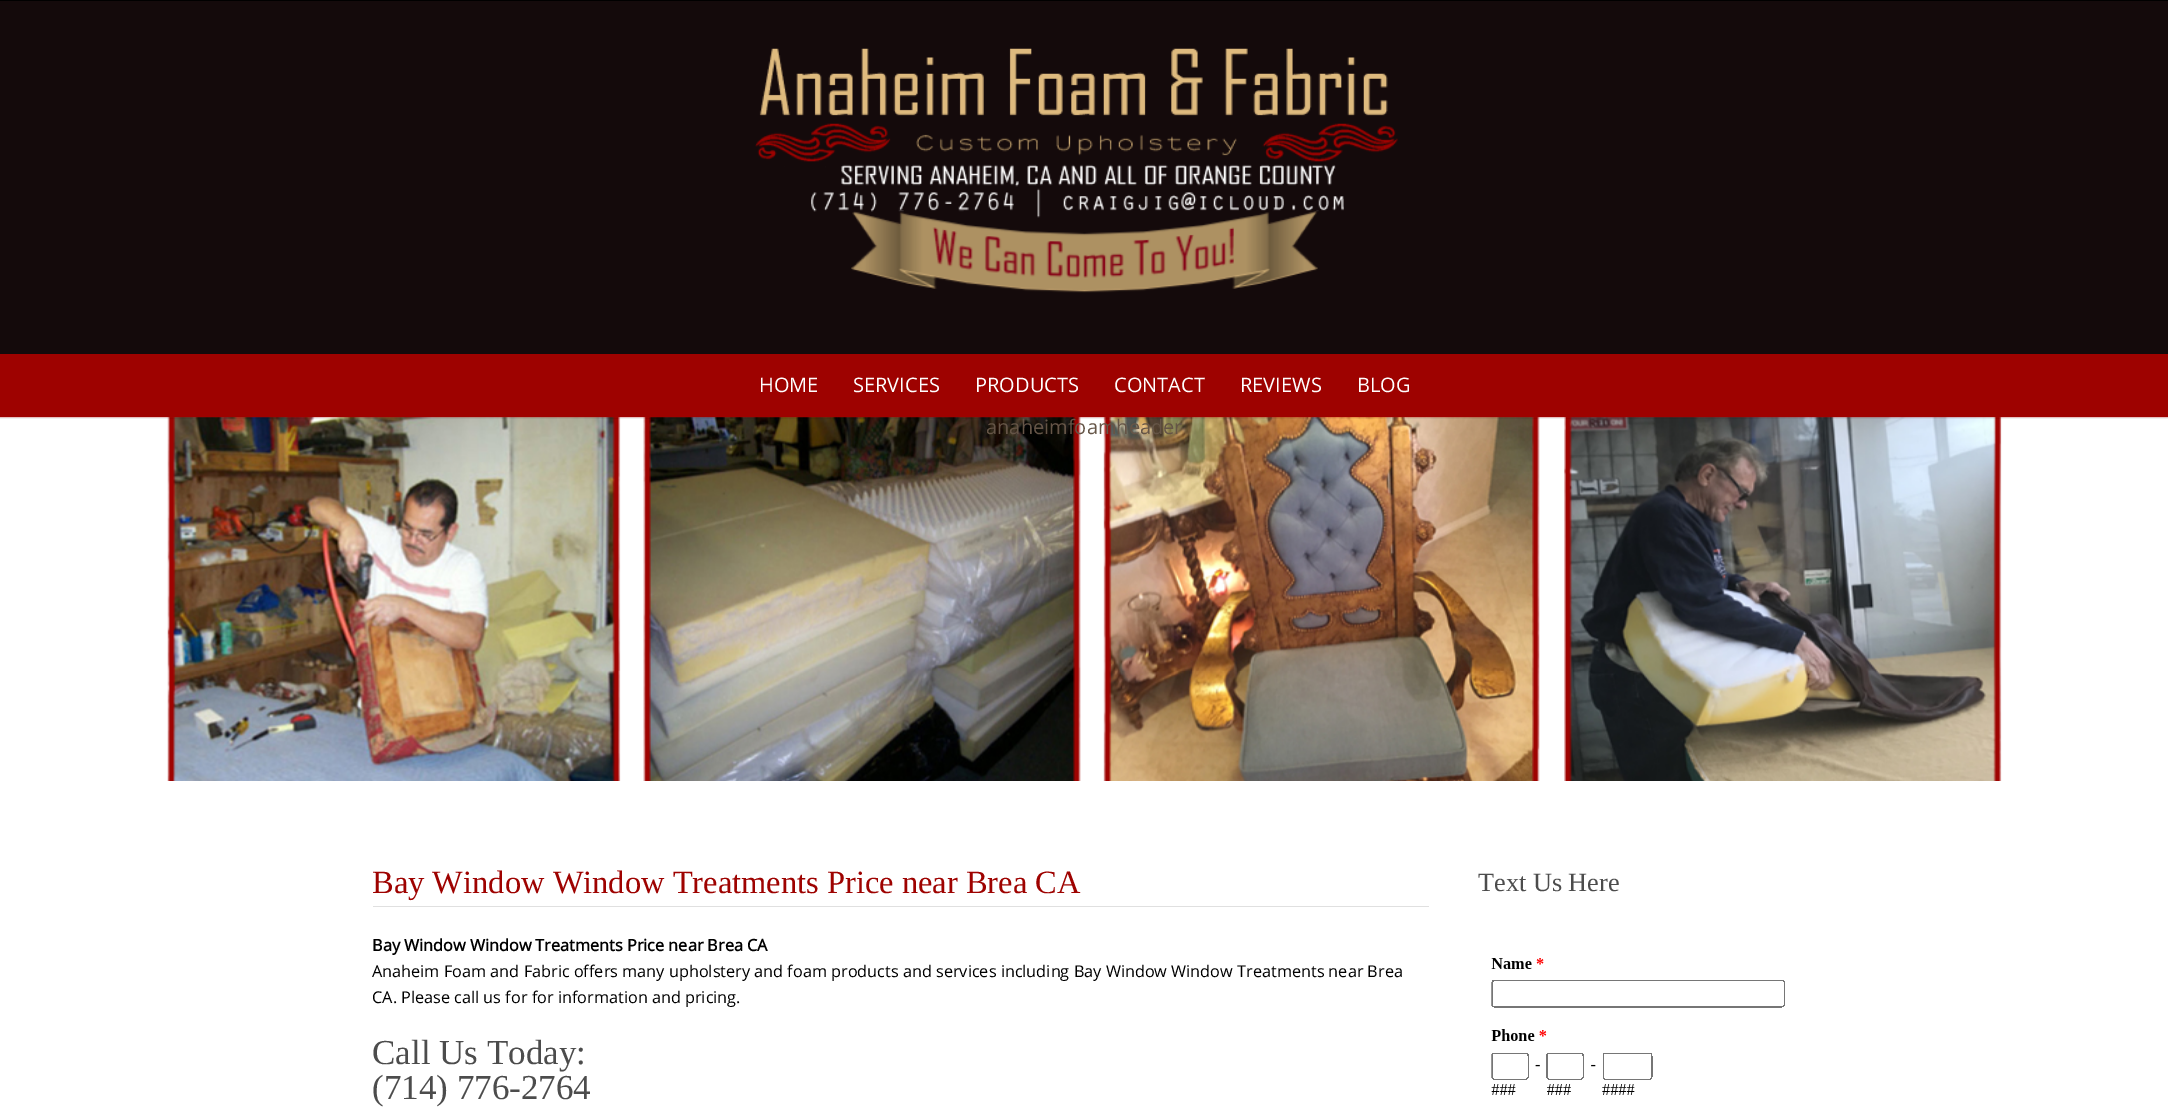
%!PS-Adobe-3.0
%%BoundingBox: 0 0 2168 1118
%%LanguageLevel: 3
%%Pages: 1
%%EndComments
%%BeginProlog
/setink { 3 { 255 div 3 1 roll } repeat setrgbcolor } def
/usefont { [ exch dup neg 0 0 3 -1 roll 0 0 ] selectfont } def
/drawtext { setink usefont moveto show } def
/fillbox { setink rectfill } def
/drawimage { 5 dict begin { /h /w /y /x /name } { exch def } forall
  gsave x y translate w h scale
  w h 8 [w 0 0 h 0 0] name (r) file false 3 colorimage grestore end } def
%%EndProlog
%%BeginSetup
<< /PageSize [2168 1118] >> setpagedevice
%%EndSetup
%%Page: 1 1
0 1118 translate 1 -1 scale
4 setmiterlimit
0 0 2168 1118 255 255 255 fillbox
(assets/img1.rgb) 0 418 2168 1 drawimage
0 0 2168 1 0 0 0 fillbox
0 1 2168 353 20 10 11 fillbox
(assets/img2.rgb) 755 48 643 245 drawimage
0 354 2168 64 158 2 0 fillbox
(HOME) 759 392 /OpenSans-Regular 20 255 255 255 drawtext
(SERVICES) 853 392 /OpenSans-Regular 20 255 255 255 drawtext
(PRODUCTS) 975 392 /OpenSans-Regular 20 255 255 255 drawtext
(CONTACT) 1114 392 /OpenSans-Regular 20 255 255 255 drawtext
(REVIEWS) 1240 392 /OpenSans-Regular 20 255 255 255 drawtext
(BLOG) 1357 392 /OpenSans-Regular 20 255 255 255 drawtext
(assets/img3.rgb) 0 417 2168 364 drawimage
(anaheimfoamheader) 986 434 /OpenSans-Regular 20 101 85 71 drawtext
373 906 1056 1 224 224 224 fillbox
(Bay Window Window Treatments Price near Brea CA) 372 893 /LiberationSerif-Regular 32.5 158 2 0 drawtext
(Bay Window Window Treatments Price near Brea CA) 372 951 /OpenSans-Bold 16.25 0 0 0 drawtext
(Anaheim Foam and Fabric offers many upholstery and foam products and services including Bay Window Window Treatments near Brea) 372 977 /OpenSans-Regular 16.25 0 0 0 drawtext
(CA. Please call us for for information and pricing.) 372 1003 /OpenSans-Regular 16.25 0 0 0 drawtext
(Call Us Today:) 372 1064 /LiberationSerif-Regular 35 76 76 76 drawtext
(\(714\) 776-2764) 372 1099 /LiberationSerif-Regular 35 76 76 76 drawtext
(Text Us Here) 1478 891 /LiberationSerif-Regular 26.25 76 76 76 drawtext
(assets/img4.rgb) 1491 958 294 137 drawimage
showpage
%%EOF
